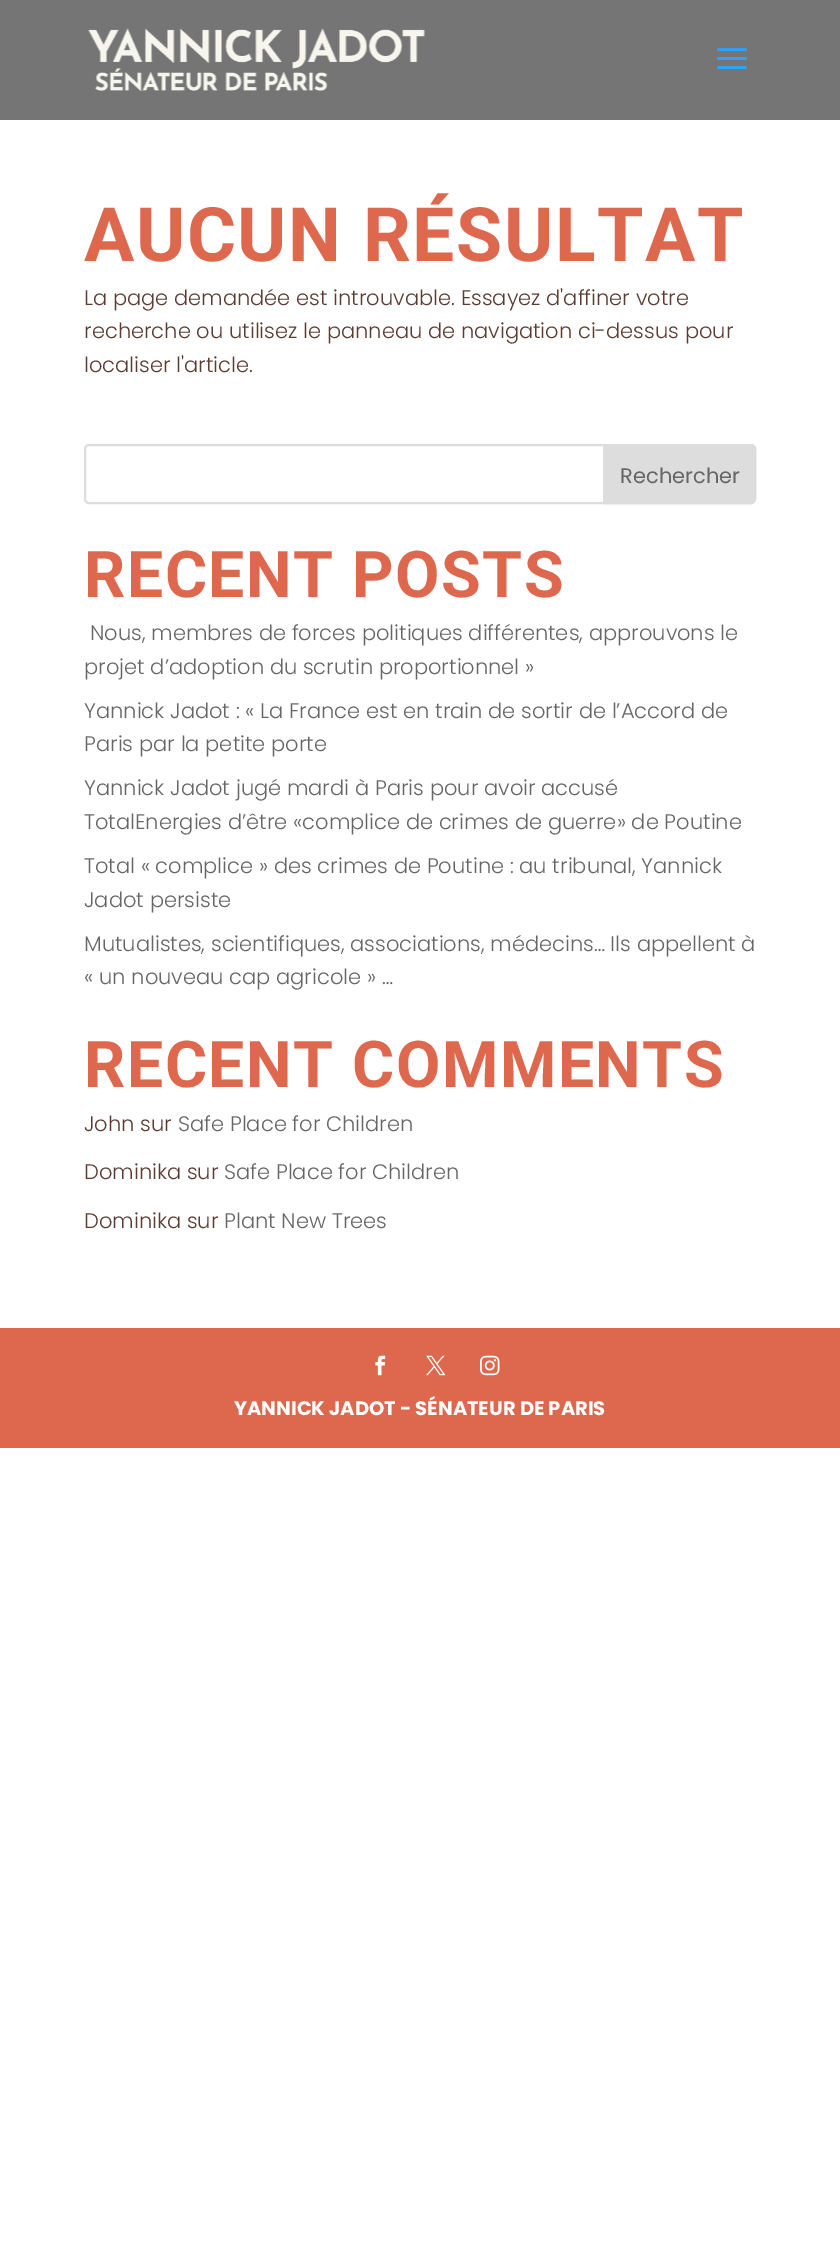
%!PS-Adobe-3.0
%%BoundingBox: 0 0 840 2246
%%LanguageLevel: 3
%%Pages: 1
%%EndComments
%%BeginProlog
/setink { 3 { 255 div 3 1 roll } repeat setrgbcolor } def
/usefont { [ exch dup neg 0 0 3 -1 roll 0 0 ] selectfont } def
/drawtext { setink usefont moveto show } def
/fillbox { setink rectfill } def
/rrect { 5 dict begin { /r /h /w /y /x } { exch def } forall
  x r add y moveto x w add y 2 copy h add r arct x w add y h add x 1 index r arct
  x y h add x y r arct x y 2 copy exch w add exch r arct closepath end } def
/drawimage { 5 dict begin { /h /w /y /x /name } { exch def } forall
  gsave x y translate w h scale
  w h 8 [w 0 0 h 0 0] name (r) file false 3 colorimage grestore end } def
%%EndProlog
%%BeginSetup
<< /PageSize [840 2246] >> setpagedevice
%%EndSetup
%%Page: 1 1
0 2246 translate 1 -1 scale
4 setmiterlimit
0 0 840 2246 255 255 255 fillbox
0 0 840 120 117 117 117 fillbox
(assets/img1.rgb) 88 28 337 64 drawimage
(assets/img2.rgb) 717 48 30 21 drawimage
/Roboto-Bold 75 usefont
222 104 78 setink
84 261 moveto 1.5 0 (AUCUN RÉSULTAT) ashow
(La page demandée est introuvable. Essayez d'affiner votre) 84 305 /Poppins-Light 21 92 60 50 drawtext
(recherche ou utilisez le panneau de navigation ci-dessus pour) 84 338 /Poppins-Light 21 92 60 50 drawtext
(localiser l'article.) 84 372 /Poppins-Light 21 92 60 50 drawtext
221 221 221 setink
2 setlinewidth
85 445 670 58 4 rrect stroke
604 445 moveto 751 445 lineto 753 445 755 447 755 449 curveto 755 499 lineto 755 501 753 503 751 503 curveto 604 503 lineto closepath gsave fill grestore
stroke
(Rechercher) 620 483 /Poppins-Regular 21 102 102 102 drawtext
/Roboto-Bold 64.5 usefont
222 104 78 setink
84 597 moveto 1.5 0 (RECENT POSTS) ashow
(Nous, membres de forces politiques différentes, approuvons le) 90 640 /Poppins-Light 21 102 102 102 drawtext
(projet d’adoption du scrutin proportionnel ») 84 674 /Poppins-Light 21 102 102 102 drawtext
(Yannick Jadot : « La France est en train de sortir de l’Accord de) 84 718 /Poppins-Light 21 102 102 102 drawtext
(Paris par la petite porte) 84 751 /Poppins-Light 21 102 102 102 drawtext
(Yannick Jadot jugé mardi à Paris pour avoir accusé) 84 795 /Poppins-Light 21 102 102 102 drawtext
(TotalEnergies d’être «complice de crimes de guerre» de Poutine) 84 829 /Poppins-Light 21 102 102 102 drawtext
(Total « complice » des crimes de Poutine : au tribunal, Yannick) 84 873 /Poppins-Light 21 102 102 102 drawtext
(Jadot persiste) 84 907 /Poppins-Light 21 102 102 102 drawtext
(Mutualistes, scientifiques, associations, médecins… Ils appellent à) 84 951 /Poppins-Light 21 102 102 102 drawtext
(« un nouveau cap agricole » …) 84 984 /Poppins-Light 21 102 102 102 drawtext
/Roboto-Bold 64.5 usefont
222 104 78 setink
84 1087 moveto 1.5 0 (RECENT COMMENTS) ashow
(John sur) 84 1131 /Poppins-Light 21 92 60 50 drawtext
(Safe Place for Children) 178 1131 /Poppins-Light 21 102 102 102 drawtext
(Dominika sur) 84 1179 /Poppins-Light 21 92 60 50 drawtext
(Safe Place for Children) 224 1179 /Poppins-Light 21 102 102 102 drawtext
(Dominika sur) 84 1228 /Poppins-Light 21 92 60 50 drawtext
(Plant New Trees) 224 1228 /Poppins-Light 21 102 102 102 drawtext
0 1328 840 120 222 104 78 fillbox
(assets/img3.rgb) 375 1355 11 21 drawimage
(assets/img4.rgb) 426 1355 20 21 drawimage
(assets/img5.rgb) 480 1355 20 21 drawimage
(YANNICK JADOT - SÉNATEUR DE PARIS) 234 1415 /Poppins-Bold 19.5 255 255 255 drawtext
showpage
%%EOF
